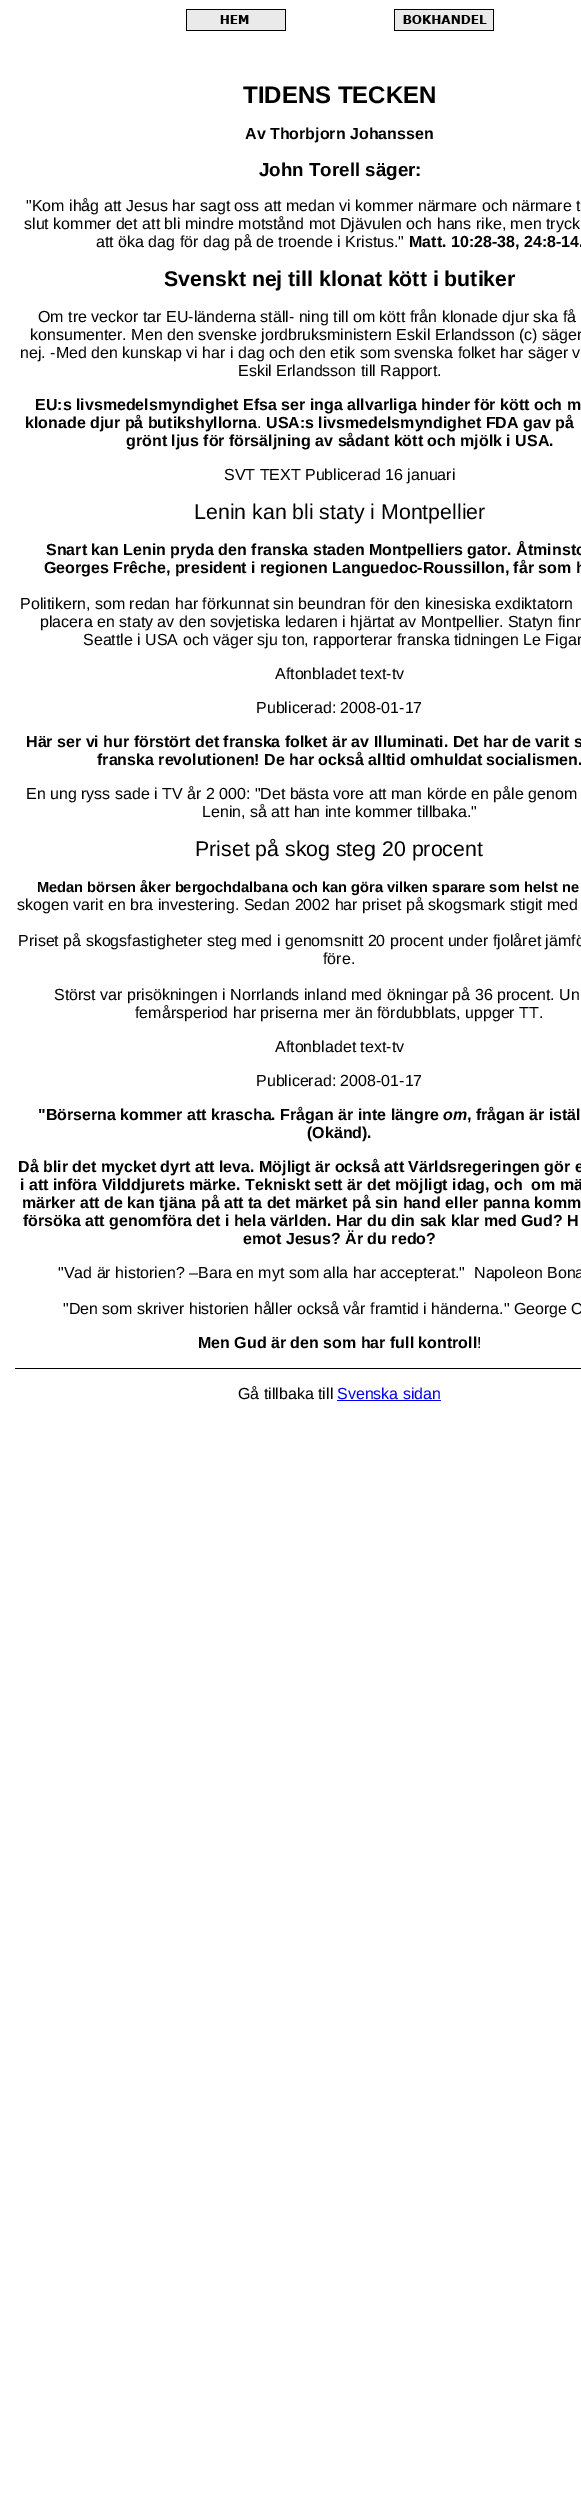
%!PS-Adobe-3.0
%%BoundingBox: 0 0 581 2494
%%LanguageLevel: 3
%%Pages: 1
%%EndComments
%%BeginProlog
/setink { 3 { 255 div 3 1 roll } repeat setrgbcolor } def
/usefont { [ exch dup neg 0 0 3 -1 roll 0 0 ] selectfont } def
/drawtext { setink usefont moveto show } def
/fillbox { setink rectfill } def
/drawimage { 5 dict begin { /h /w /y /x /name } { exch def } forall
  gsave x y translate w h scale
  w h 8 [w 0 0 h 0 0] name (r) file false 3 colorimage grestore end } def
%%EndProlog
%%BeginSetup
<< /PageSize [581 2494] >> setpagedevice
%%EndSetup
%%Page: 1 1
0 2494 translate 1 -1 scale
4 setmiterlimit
0 0 581 2494 255 255 255 fillbox
(assets/img1.rgb) 186 9 100 22 drawimage
(assets/img2.rgb) 394 9 100 22 drawimage
(TIDENS TECKEN) 243 103 /LiberationSans-Bold 24 0 0 0 drawtext
(Av Thorbjorn Johanssen) 245 139 /LiberationSans-Bold 16 0 0 0 drawtext
(John Torell säger:) 259 176 /LiberationSans-Bold 18.75 0 0 0 drawtext
("Kom ihåg att Jesus har sagt oss att medan vi kommer närmare och närmare t) 26 211 /LiberationSans-Regular 16 0 0 0 drawtext
(slut kommer det att bli mindre motstånd mot Djävulen och hans rike, men tryck) 24 229 /LiberationSans-Regular 16 0 0 0 drawtext
(att öka dag för dag på de troende i Kristus.") 96 247 /LiberationSans-Regular 16 0 0 0 drawtext
(Matt. 10:28-38, 24:8-14.) 409 247 /LiberationSans-Bold 16 0 0 0 drawtext
(Svenskt nej till klonat kött i butiker) 164 286 /LiberationSans-Bold 21.3 0 0 0 drawtext
(Om tre veckor tar EU-länderna ställ- ning till om kött från klonade djur ska få) 38 322 /LiberationSans-Regular 16 0 0 0 drawtext
(konsumenter. Men den svenske jordbruksministern Eskil Erlandsson \(c\) säger) 30 340 /LiberationSans-Regular 16 0 0 0 drawtext
(nej. -Med den kunskap vi har i dag och den etik som svenska folket har säger v) 20 358 /LiberationSans-Regular 16 0 0 0 drawtext
(Eskil Erlandsson till Rapport.) 238 376 /LiberationSans-Regular 16 0 0 0 drawtext
(EU:s livsmedelsmyndighet Efsa ser inga allvarliga hinder för kött och m) 35 410 /LiberationSans-Bold 16 0 0 0 drawtext
(klonade djur på butikshyllorna) 25 428 /LiberationSans-Bold 16 0 0 0 drawtext
(.) 257 428 /LiberationSans-Regular 16 0 0 0 drawtext
(USA:s livsmedelsmyndighet FDA gav på) 266 428 /LiberationSans-Bold 16 0 0 0 drawtext
(grönt ljus för försäljning av sådant kött och mjölk i USA.) 126 446 /LiberationSans-Bold 16 0 0 0 drawtext
(SVT TEXT Publicerad 16 januari) 224 480 /LiberationSans-Regular 16 0 0 0 drawtext
(Lenin kan bli staty i Montpellier) 194 519 /LiberationSans-Regular 21.3 0 0 0 drawtext
(Snart kan Lenin pryda den franska staden Montpelliers gator. Åtminsto) 46 555 /LiberationSans-Bold 16 0 0 0 drawtext
(Georges Frêche, president i regionen Languedoc-Roussillon, får som h) 44 573 /LiberationSans-Bold 16 0 0 0 drawtext
(Politikern, som redan har förkunnat sin beundran för den kinesiska exdiktatorn) 20 609 /LiberationSans-Regular 16 0 0 0 drawtext
(placera en staty av den sovjetiska ledaren i hjärtat av Montpellier. Statyn finn) 40 627 /LiberationSans-Regular 16 0 0 0 drawtext
(Seattle i USA och väger sju ton, rapporterar franska tidningen Le Figar) 83 645 /LiberationSans-Regular 16 0 0 0 drawtext
(Aftonbladet text-tv) 275 679 /LiberationSans-Regular 16 0 0 0 drawtext
(Publicerad: 2008-01-17) 256 713 /LiberationSans-Regular 16 0 0 0 drawtext
(Här ser vi hur förstört det franska folket är av Illuminati. Det har de varit s) 26 747 /LiberationSans-Bold 16 0 0 0 drawtext
(franska revolutionen! De har också alltid omhuldat socialismen.) 97 765 /LiberationSans-Bold 16 0 0 0 drawtext
(En ung ryss sade i TV år 2 000: "Det bästa vore att man körde en påle genom) 26 799 /LiberationSans-Regular 16 0 0 0 drawtext
(Lenin, så att han inte kommer tillbaka.") 202 817 /LiberationSans-Regular 16 0 0 0 drawtext
(Priset på skog steg 20 procent) 195 856 /LiberationSans-Regular 21.3 0 0 0 drawtext
(Medan börsen åker bergochdalbana och kan göra vilken sparare som helst ne) 37 892 /LiberationSans-Bold 14.65 0 0 0 drawtext
(skogen varit en bra investering. Sedan 2002 har priset på skogsmark stigit med) 17 910 /LiberationSans-Regular 16 0 0 0 drawtext
(Priset på skogsfastigheter steg med i genomsnitt 20 procent under fjolåret jämfö) 18 946 /LiberationSans-Regular 16 0 0 0 drawtext
(före.) 323 964 /LiberationSans-Regular 16 0 0 0 drawtext
(Störst var prisökningen i Norrlands inland med ökningar på 36 procent. Un) 54 1000 /LiberationSans-Regular 16 0 0 0 drawtext
(femårsperiod har priserna mer än fördubblats, uppger TT.) 135 1018 /LiberationSans-Regular 16 0 0 0 drawtext
(Aftonbladet text-tv) 275 1052 /LiberationSans-Regular 16 0 0 0 drawtext
(Publicerad: 2008-01-17) 256 1086 /LiberationSans-Regular 16 0 0 0 drawtext
("Börserna kommer att krascha. Frågan är inte längre) 38 1120 /LiberationSans-Bold 16 0 0 0 drawtext
(om) 443 1120 /LiberationSans-BoldItalic 16 0 0 0 drawtext
(, frågan är istäl) 467 1120 /LiberationSans-Bold 16 0 0 0 drawtext
(\(Okänd\).) 307 1138 /LiberationSans-Bold 16 0 0 0 drawtext
(Då blir det mycket dyrt att leva. Möjligt är också att Världsregeringen gör e) 18 1172 /LiberationSans-Bold 16 0 0 0 drawtext
(i att införa Vilddjurets märke. Tekniskt sett är det möjligt idag, och  om mä) 20 1190 /LiberationSans-Bold 16 0 0 0 drawtext
(märker att de kan tjäna på att ta det märket på sin hand eller panna komm) 22 1208 /LiberationSans-Bold 16 0 0 0 drawtext
(försöka att genomföra det i hela världen. Har du din sak klar med Gud? H) 23 1226 /LiberationSans-Bold 16 0 0 0 drawtext
(emot Jesus? Är du redo?) 243 1244 /LiberationSans-Bold 16 0 0 0 drawtext
("Vad är historien? –Bara en myt som alla har accepterat.") 58 1278 /LiberationSans-Regular 16 0 0 0 drawtext
(Napoleon Bona) 474 1278 /LiberationSans-Regular 16 0 0 0 drawtext
("Den som skriver historien håller också vår framtid i händerna." George O) 63 1314 /LiberationSans-Regular 16 0 0 0 drawtext
(Men Gud är den som har full kontroll) 198 1348 /LiberationSans-Bold 16 0 0 0 drawtext
(!) 477 1348 /LiberationSans-Regular 16 0 0 0 drawtext
15 1368 566 1 0 0 0 fillbox
(Gå tillbaka till) 238 1399 /LiberationSans-Regular 16 0 0 0 drawtext
(Svenska sidan) 337 1399 /LiberationSans-Regular 16 0 0 238 drawtext
337 1400 104 1 0 0 238 fillbox
showpage
%%EOF
